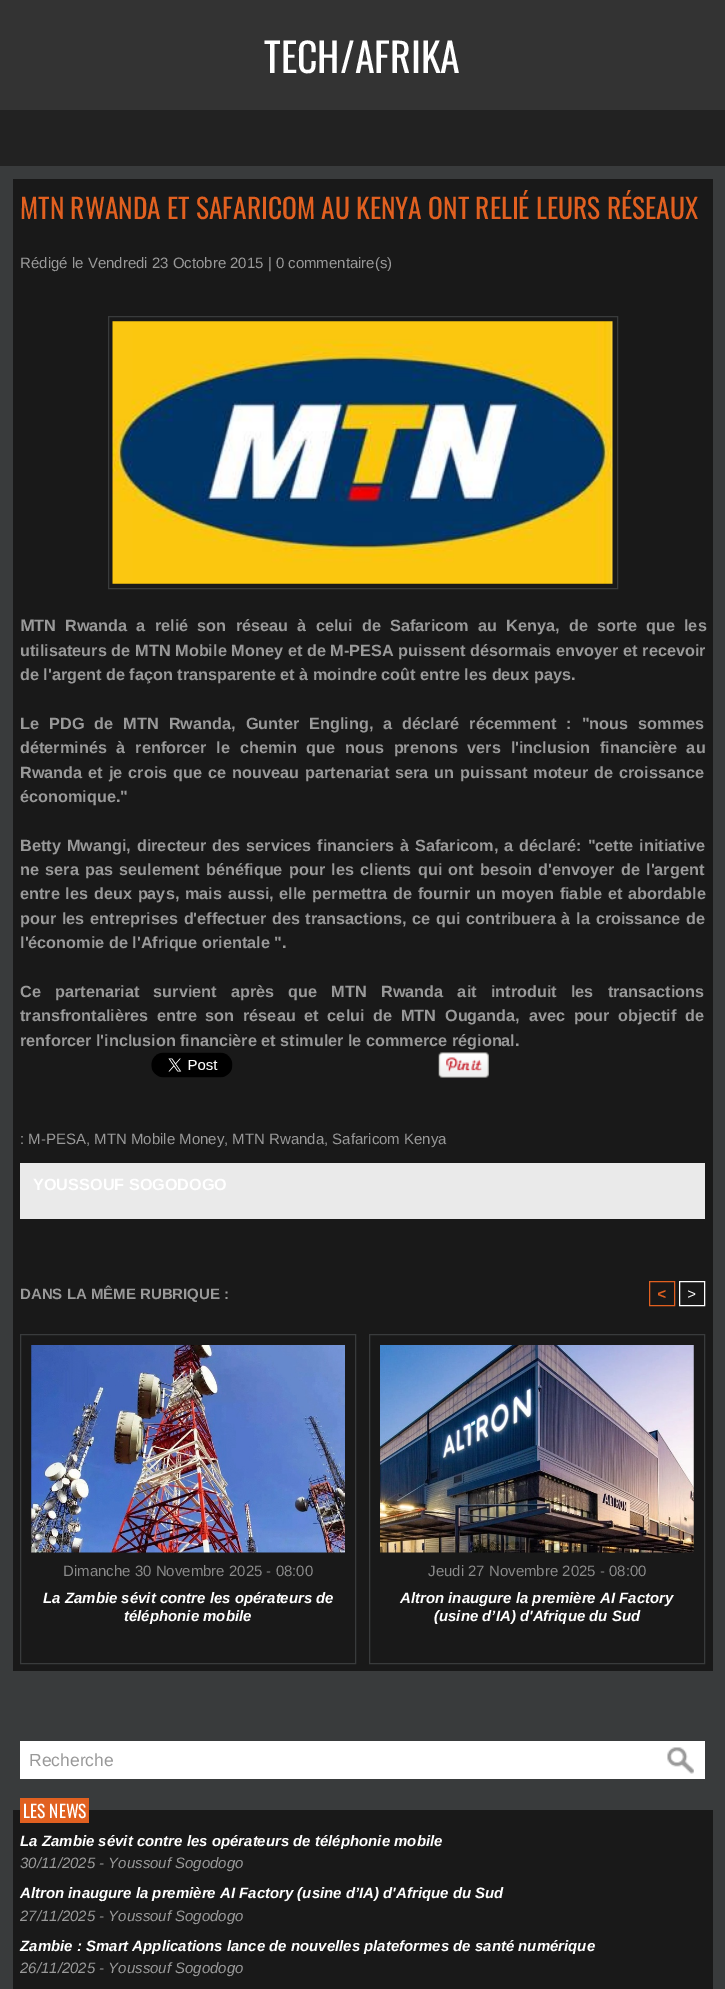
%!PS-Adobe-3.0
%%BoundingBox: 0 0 725 1989
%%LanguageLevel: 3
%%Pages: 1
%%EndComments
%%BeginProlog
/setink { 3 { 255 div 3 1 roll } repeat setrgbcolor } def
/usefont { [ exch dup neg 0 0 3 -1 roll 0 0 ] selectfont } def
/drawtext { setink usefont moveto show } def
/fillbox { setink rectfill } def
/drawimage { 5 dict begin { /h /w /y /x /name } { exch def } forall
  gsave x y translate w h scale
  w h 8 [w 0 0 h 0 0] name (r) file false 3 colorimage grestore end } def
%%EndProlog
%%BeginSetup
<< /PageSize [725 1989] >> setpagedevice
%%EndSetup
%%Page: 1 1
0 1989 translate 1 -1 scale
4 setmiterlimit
0 0 725 1989 34 34 34 fillbox
0 0 725 110 51 51 51 fillbox
(TECH/AFRIKA) 264 73 /Oswald-Regular 40 255 255 255 drawtext
0 166 725 1823 57 59 60 fillbox
13 179 700 1492 25 25 25 fillbox
(MTN RWANDA ET SAFARICOM AU KENYA ONT RELIÉ LEURS RÉSEAUX) 20 219 /Oswald-Regular 27.5 225 96 32 drawtext
(Rédigé le Vendredi 23 Octobre 2015 | 0 commentaire\(s\)) 20 268 /LiberationSans-Regular 15 153 153 153 drawtext
57 59 60 setink
108.5 316.5 509 272 rectstroke
(assets/img1.rgb) 112 321 501 263 drawimage
(M) 20 631 /NotoSans-Bold 16.25 153 153 153 drawtext
/LiberationSans-Bold 16.25 usefont
34 631 moveto 4.75 0 32 (TN Rwanda a relié son réseau à celui de Safaricom au Kenya, de sorte que les) widthshow
20 656 moveto 0.25 0 32 (utilisateurs de MTN Mobile Money et de M-PESA puissent désormais envoyer et recevoir) widthshow
(de l'argent de façon transparente et à moindre coût entre les deux pays.) 20 680 /LiberationSans-Bold 16.25 153 153 153 drawtext
20 729 moveto 5.6 0 32 (Le PDG de MTN Rwanda, Gunter Engling, a déclaré récemment : "nous sommes) widthshow
20 753 moveto 5.25 0 32 (déterminés à renforcer le chemin que nous prenons vers l'inclusion financière au) widthshow
20 778 moveto 1.5 0 32 (Rwanda et je crois que ce nouveau partenariat sera un puissant moteur de croissance) widthshow
(économique.") 20 802 /LiberationSans-Bold 16.25 153 153 153 drawtext
20 851 moveto 1.5 0 32 (Betty Mwangi, directeur des services financiers à Safaricom, a déclaré: "cette initiative) widthshow
20 875 moveto 1.75 0 32 (ne sera pas seulement bénéfique pour les clients qui ont besoin d'envoyer de l'argent) widthshow
20 899 moveto 1.25 0 32 (entre les deux pays, mais aussi, elle permettra de fournir un moyen fiable et abordable) widthshow
20 924 moveto 1.25 0 32 (pour les entreprises d'effectuer des transactions, ce qui contribuera à la croissance de) widthshow
(l'économie de l'Afrique orientale ".) 20 948 /LiberationSans-Bold 16.25 153 153 153 drawtext
20 997 moveto 9.75 0 32 (Ce partenariat survient après que MTN Rwanda ait introduit les transactions) widthshow
20 1021 moveto 4.25 0 32 (transfrontalières entre son réseau et celui de MTN Ouganda, avec pour objectif de) widthshow
(renforcer l'inclusion financière et stimuler le commerce régional.) 20 1046 /LiberationSans-Bold 16.25 153 153 153 drawtext
(assets/img2.rgb) 151 1052 82 26 drawimage
(assets/img3.rgb) 438 1052 51 26 drawimage
(: M-PESA, MTN Mobile Money, MTN Rwanda, Safaricom Kenya) 20 1144 /LiberationSans-Regular 15 153 153 153 drawtext
20 1163 685 56 234 234 234 fillbox
(YOUSSOUF SOGODOGO) 33 1190 /LiberationSans-Bold 16.25 255 255 255 drawtext
(DANS LA MÊME RUBRIQUE :) 20 1299 /LiberationSans-Bold 15 153 153 153 drawtext
225 96 32 setink
649.5 1281.5 25 24 rectstroke
(<) 657 1299 /LiberationSans-BoldItalic 15 225 96 32 drawtext
255 255 255 setink
679.5 1281.5 25 24 rectstroke
(>) 687 1299 /LiberationSans-Italic 15 255 255 255 drawtext
57 59 60 setink
20.5 1334.5 335 329 rectstroke
(assets/img4.rgb) 31 1345 314 208 drawimage
(Dimanche 30 Novembre 2025 - 08:00) 63 1576 /LiberationSans-Regular 15 137 137 137 drawtext
(La Zambie sévit contre les opérateurs de) 43 1603 /LiberationSans-BoldItalic 15 255 255 255 drawtext
(téléphonie mobile) 124 1621 /LiberationSans-BoldItalic 15 255 255 255 drawtext
57 59 60 setink
369.5 1334.5 335 329 rectstroke
(assets/img5.rgb) 380 1345 314 208 drawimage
(Jeudi 27 Novembre 2025 - 08:00) 428 1576 /LiberationSans-Regular 15 137 137 137 drawtext
(Altron inaugure la première AI Factory) 400 1603 /LiberationSans-BoldItalic 15 255 255 255 drawtext
(\(usine d’IA\) d'Afrique du Sud) 434 1621 /LiberationSans-BoldItalic 15 255 255 255 drawtext
20 1741 685 38 255 255 255 fillbox
(assets/img6.rgb) 667 1747 27 27 drawimage
(Recherche) 29 1766 /LiberationSans-Regular 17.5 153 153 153 drawtext
13 1810 700 179 25 25 25 fillbox
20 1798 69 25 225 96 32 fillbox
(LES NEWS) 23 1818 /Oswald-Regular 17.5 255 255 255 drawtext
(La Zambie sévit contre les opérateurs de téléphonie mobile) 20 1846 /LiberationSans-BoldItalic 15 255 255 255 drawtext
(30/11/2025 - Youssouf Sogodogo) 20 1868 /LiberationSans-Italic 15 153 153 153 drawtext
(Altron inaugure la première AI Factory \(usine d’IA\) d'Afrique du Sud) 20 1898 /LiberationSans-BoldItalic 15 255 255 255 drawtext
(27/11/2025 - Youssouf Sogodogo) 20 1921 /LiberationSans-Italic 15 153 153 153 drawtext
(Zambie : Smart Applications lance de nouvelles plateformes de santé numérique) 20 1951 /LiberationSans-BoldItalic 15 255 255 255 drawtext
(26/11/2025 - Youssouf Sogodogo) 20 1973 /LiberationSans-Italic 15 153 153 153 drawtext
showpage
%%EOF
